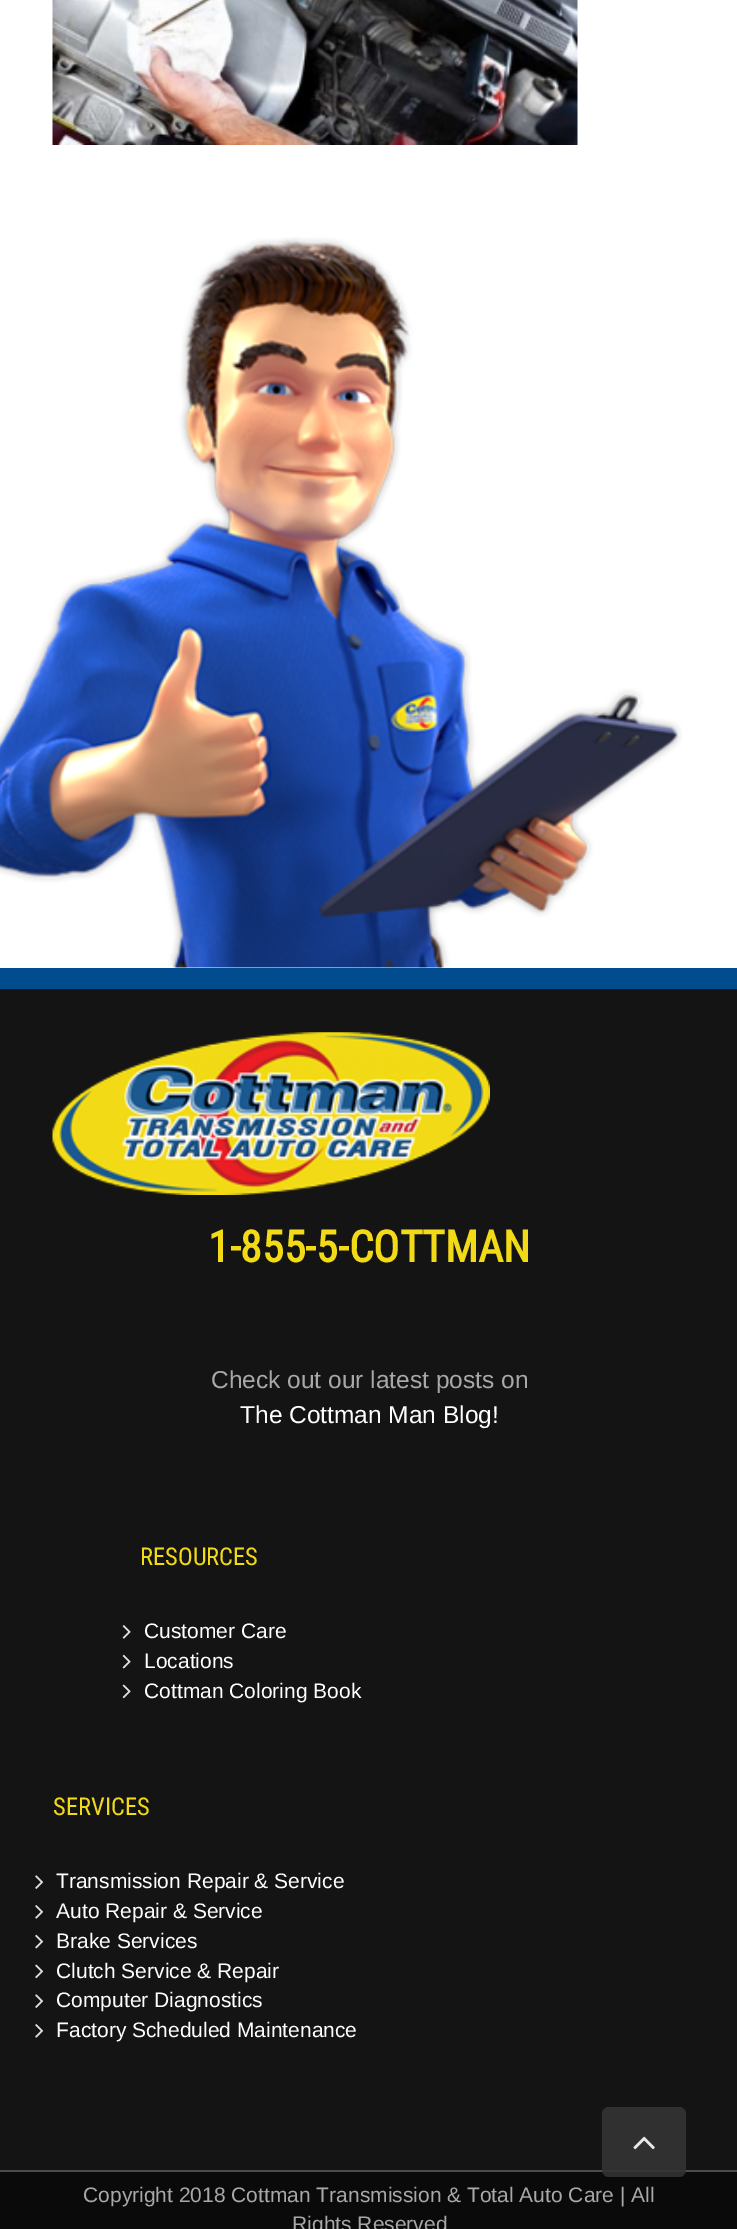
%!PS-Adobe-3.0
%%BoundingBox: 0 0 737 2229
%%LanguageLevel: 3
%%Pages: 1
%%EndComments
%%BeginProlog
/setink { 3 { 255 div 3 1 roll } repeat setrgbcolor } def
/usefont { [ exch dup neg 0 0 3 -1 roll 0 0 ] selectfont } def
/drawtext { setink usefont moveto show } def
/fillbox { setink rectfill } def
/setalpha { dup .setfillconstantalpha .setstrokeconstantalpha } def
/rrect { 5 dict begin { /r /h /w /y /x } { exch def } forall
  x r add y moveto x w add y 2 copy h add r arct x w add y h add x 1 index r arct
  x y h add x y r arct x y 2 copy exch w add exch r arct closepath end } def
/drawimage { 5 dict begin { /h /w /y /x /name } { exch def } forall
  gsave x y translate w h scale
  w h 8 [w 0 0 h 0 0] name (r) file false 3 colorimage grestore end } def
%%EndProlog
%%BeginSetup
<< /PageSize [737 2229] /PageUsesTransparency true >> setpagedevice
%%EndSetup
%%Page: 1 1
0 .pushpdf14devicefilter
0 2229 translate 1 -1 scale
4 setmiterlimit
0 0 737 2229 255 255 255 fillbox
(assets/img1.rgb) 0 237 682 731 drawimage
(assets/img2.rgb) 52 0 526 145 drawimage
0 989 737 1181 20 20 20 fillbox
0 968 737 21 0 76 142 fillbox
(assets/img3.rgb) 52 1032 438 163 drawimage
(1-855-5-COTTMAN) 208 1262 /RobotoCondensed-Bold 43.75 242 219 22 drawtext
(Check out our latest posts on) 211 1388 /LiberationSans-Regular 24.5 168 168 168 drawtext
(The Cottman Man Blog!) 240 1423 /LiberationSans-Regular 24.5 255 255 255 drawtext
(RESOURCES) 140 1565 /RobotoCondensed-Regular 24.5 242 219 22 drawtext
(assets/img4.rgb) 122 1625 9 14 drawimage
(Customer Care) 144 1638 /LiberationSans-Regular 21 255 255 255 drawtext
(assets/img5.rgb) 122 1654 9 15 drawimage
(Locations) 144 1668 /LiberationSans-Regular 21 255 255 255 drawtext
(assets/img6.rgb) 122 1684 9 15 drawimage
(Cottman Coloring Book) 144 1698 /LiberationSans-Regular 21 255 255 255 drawtext
(SERVICES) 53 1815 /RobotoCondensed-Regular 24.5 242 219 22 drawtext
(assets/img7.rgb) 35 1875 9 14 drawimage
(Transmission Repair & Service) 56 1888 /LiberationSans-Regular 21 255 255 255 drawtext
(assets/img8.rgb) 35 1905 9 14 drawimage
(Auto Repair & Service) 56 1918 /LiberationSans-Regular 21 255 255 255 drawtext
(assets/img9.rgb) 35 1934 9 15 drawimage
(Brake Services) 56 1948 /LiberationSans-Regular 21 255 255 255 drawtext
(assets/img10.rgb) 35 1964 9 15 drawimage
(Clutch Service & Repair) 56 1978 /LiberationSans-Regular 21 255 255 255 drawtext
(assets/img7.rgb) 35 1994 9 14 drawimage
(Computer Diagnostics) 56 2007 /LiberationSans-Regular 21 255 255 255 drawtext
(assets/img8.rgb) 35 2024 9 14 drawimage
(Factory Scheduled Maintenance) 56 2037 /LiberationSans-Regular 21 255 255 255 drawtext
0 2172 737 57 10 10 10 fillbox
0 2170 737 2 75 76 77 fillbox
(Copyright 2018 Cottman Transmission & Total Auto Care | All) 83 2202 /LiberationSans-Regular 21 168 168 168 drawtext
(Rights Reserved) 292 2231 /LiberationSans-Regular 21 168 168 168 drawtext
0.89 setalpha
51 51 51 setink
602 2107 84 70 7 rrect fill
1 setalpha
(assets/img11.rgb) 633 2136 22 14 drawimage
.poppdf14devicefilter showpage
%%EOF
